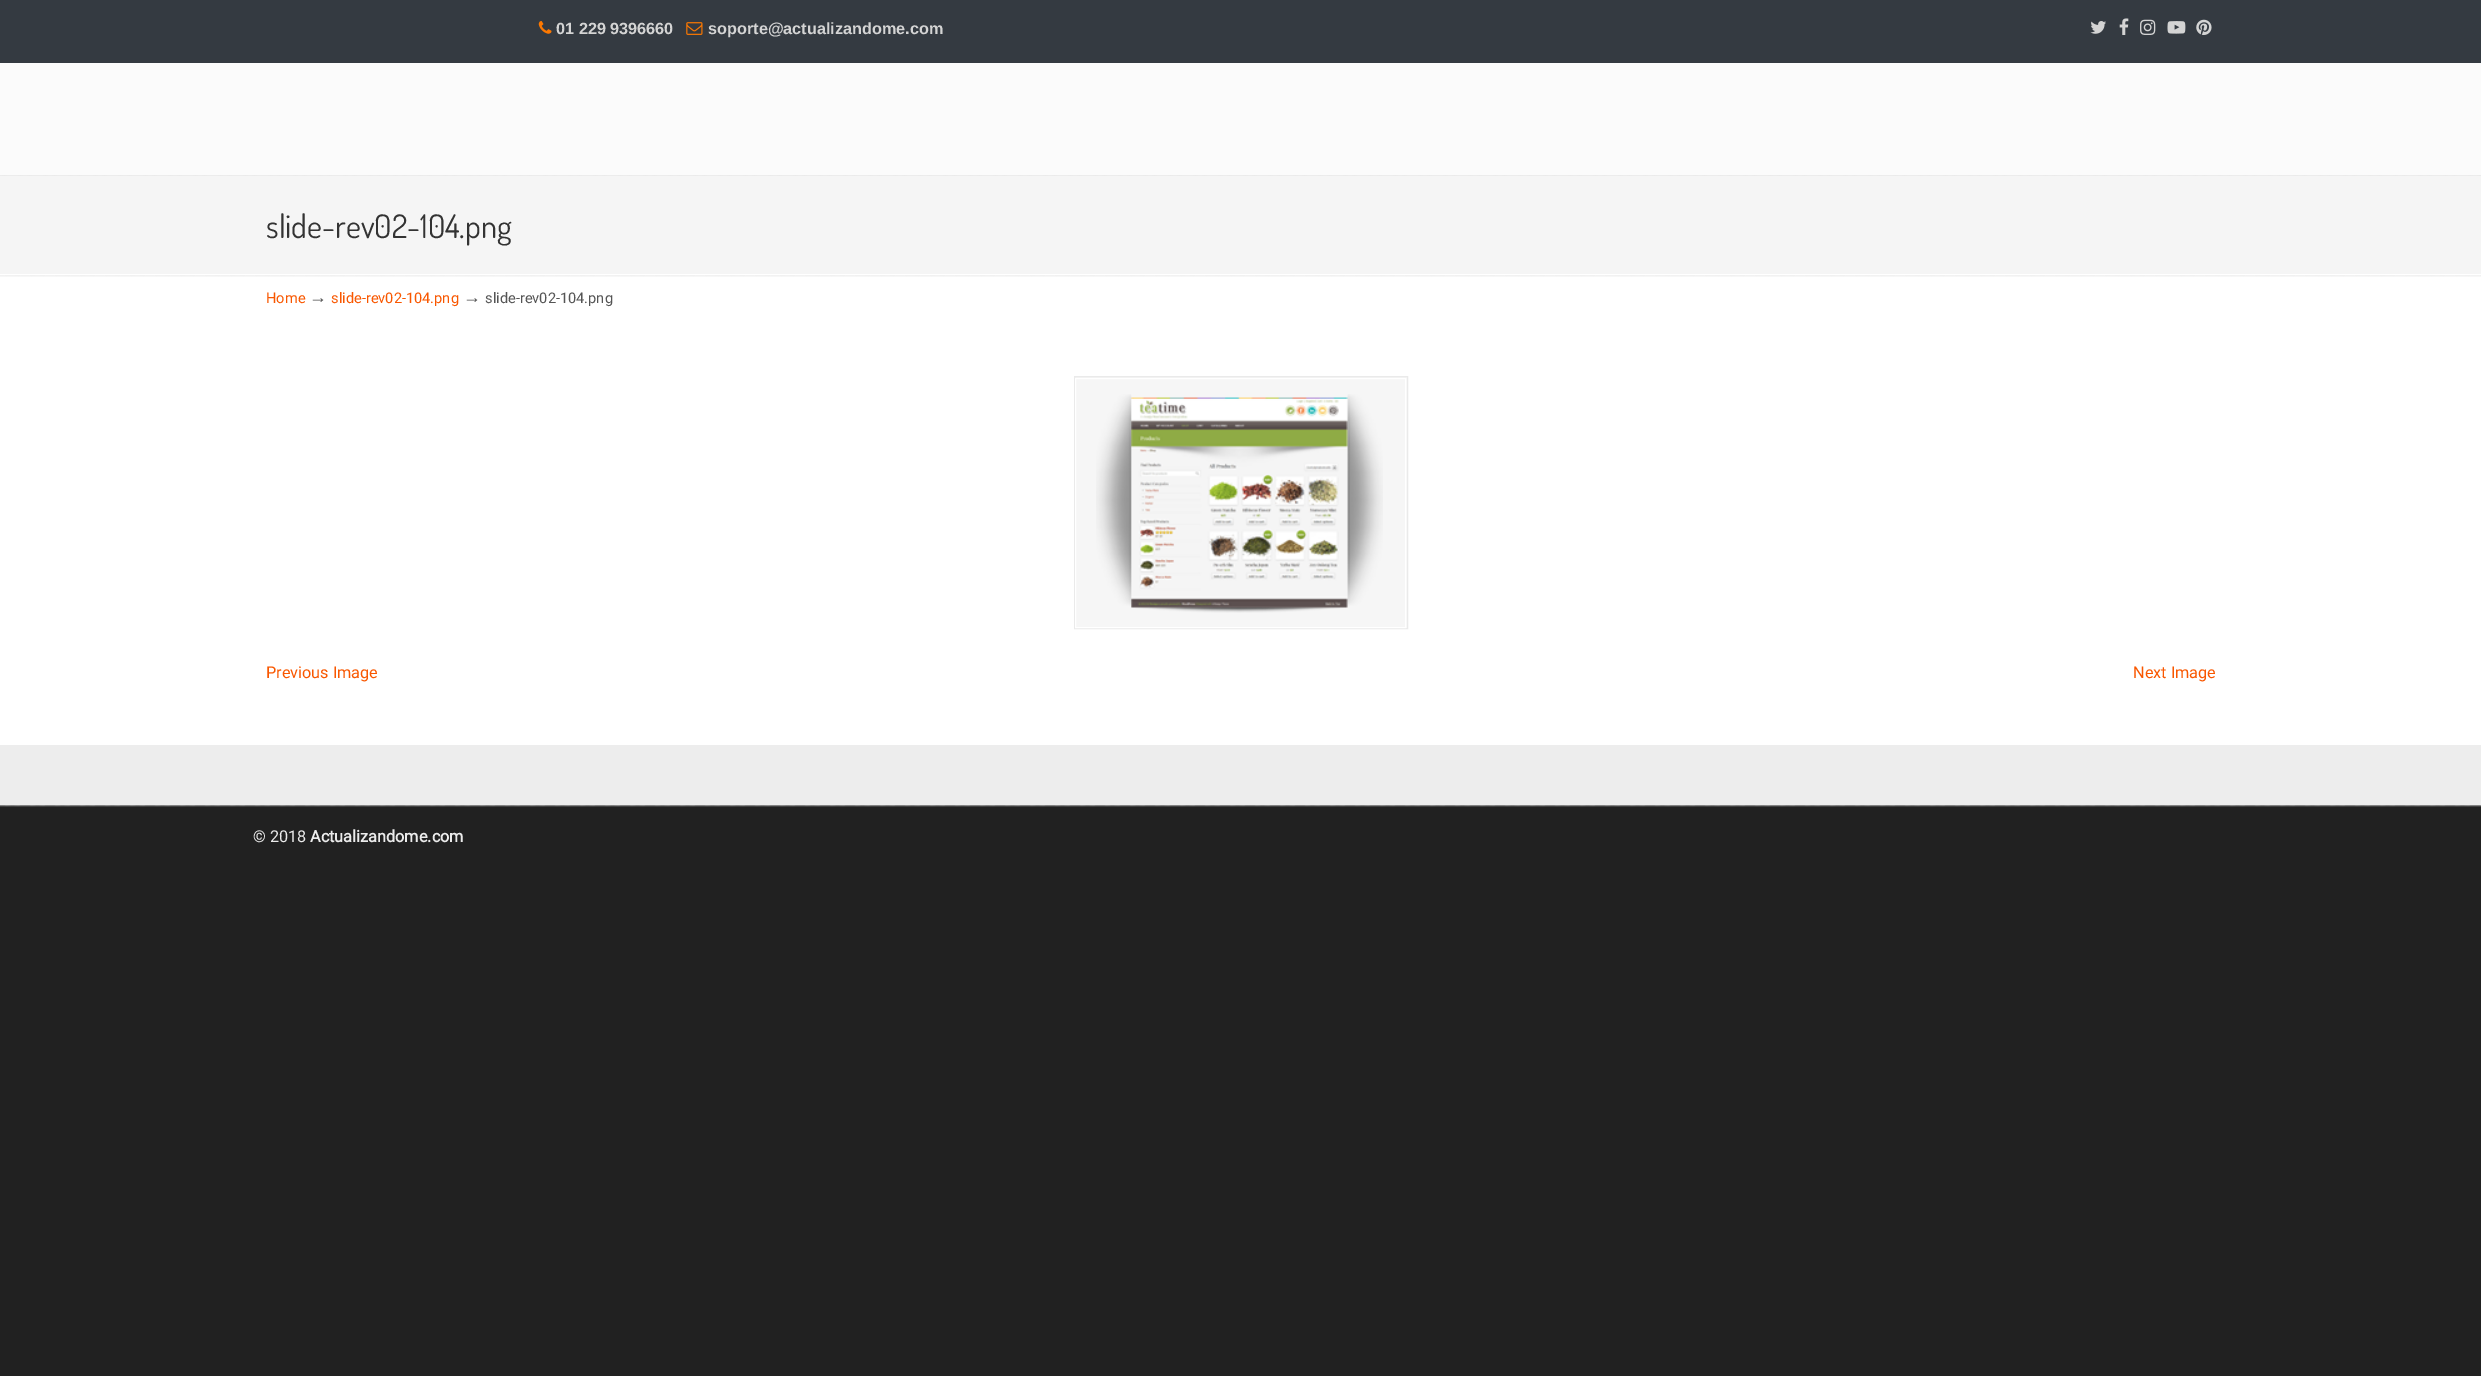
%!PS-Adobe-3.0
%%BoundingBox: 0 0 2481 1376
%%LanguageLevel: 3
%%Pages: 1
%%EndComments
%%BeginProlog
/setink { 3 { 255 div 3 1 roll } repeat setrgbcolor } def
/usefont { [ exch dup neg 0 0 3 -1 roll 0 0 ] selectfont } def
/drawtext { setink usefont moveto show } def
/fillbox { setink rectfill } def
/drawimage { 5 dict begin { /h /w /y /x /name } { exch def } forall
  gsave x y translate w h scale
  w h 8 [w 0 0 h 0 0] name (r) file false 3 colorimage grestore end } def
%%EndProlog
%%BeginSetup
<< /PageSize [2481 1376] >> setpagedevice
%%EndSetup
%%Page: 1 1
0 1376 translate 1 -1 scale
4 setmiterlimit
0 0 2481 1376 33 33 33 fillbox
0 63 2481 113 251 251 251 fillbox
0 0 2481 63 52 58 65 fillbox
(assets/img1.rgb) 538 21 14 13 drawimage
(01 229 9396660) 556 34 /LiberationSans-Bold 16.25 212 212 212 drawtext
(assets/img2.rgb) 686 22 17 13 drawimage
(soporte@actualizandome.com) 708 34 /LiberationSans-Bold 16.25 212 212 212 drawtext
(assets/img3.rgb) 2090 21 16 13 drawimage
(assets/img4.rgb) 2119 18 10 17 drawimage
(assets/img5.rgb) 2140 19 16 16 drawimage
(assets/img6.rgb) 2167 21 19 13 drawimage
(assets/img7.rgb) 2196 19 16 16 drawimage
(assets/img8.rgb) 0 175 2481 1 drawimage
0 176 2481 98 245 245 245 fillbox
(slide-rev02-104.png) 266 238 /Dosis-Regular 32.5 51 51 51 drawtext
0 274 2481 471 255 255 255 fillbox
(assets/img9.rgb) 0 275 2481 2 drawimage
(Home) 266 303 /Roboto-Regular 14.6 249 87 0 drawtext
(→) 309 303 /LiberationSerif-Regular 18 85 85 85 drawtext
(slide-rev02-104.png) 331 303 /Roboto-Regular 14.6 249 87 0 drawtext
(→) 463 303 /LiberationSerif-Regular 18 85 85 85 drawtext
(slide-rev02-104.png) 485 303 /Roboto-Regular 14.6 85 85 85 drawtext
246 246 246 setink
1074.5 376.5 moveto 1407.5 376.5 lineto 1407.5 628.5 lineto 1074.5 628.5 lineto closepath gsave fill grestore
234 234 234 setink
stroke
255 255 255 setink
1075.5 378.5 330 249 rectstroke
(assets/img10.rgb) 1096 394 287 219 drawimage
(Previous Image) 266 678 /Roboto-Regular 16.25 249 87 0 drawtext
(Next Image) 2133 678 /Roboto-Regular 16.25 249 87 0 drawtext
0 745 2481 60 237 237 237 fillbox
(assets/img11.rgb) 0 805 2481 2 drawimage
(© 2018) 253 842 /Roboto-Regular 16.25 235 235 235 drawtext
(Actualizandome.com) 310 842 /Roboto-Bold 16.25 235 235 235 drawtext
showpage
%%EOF
